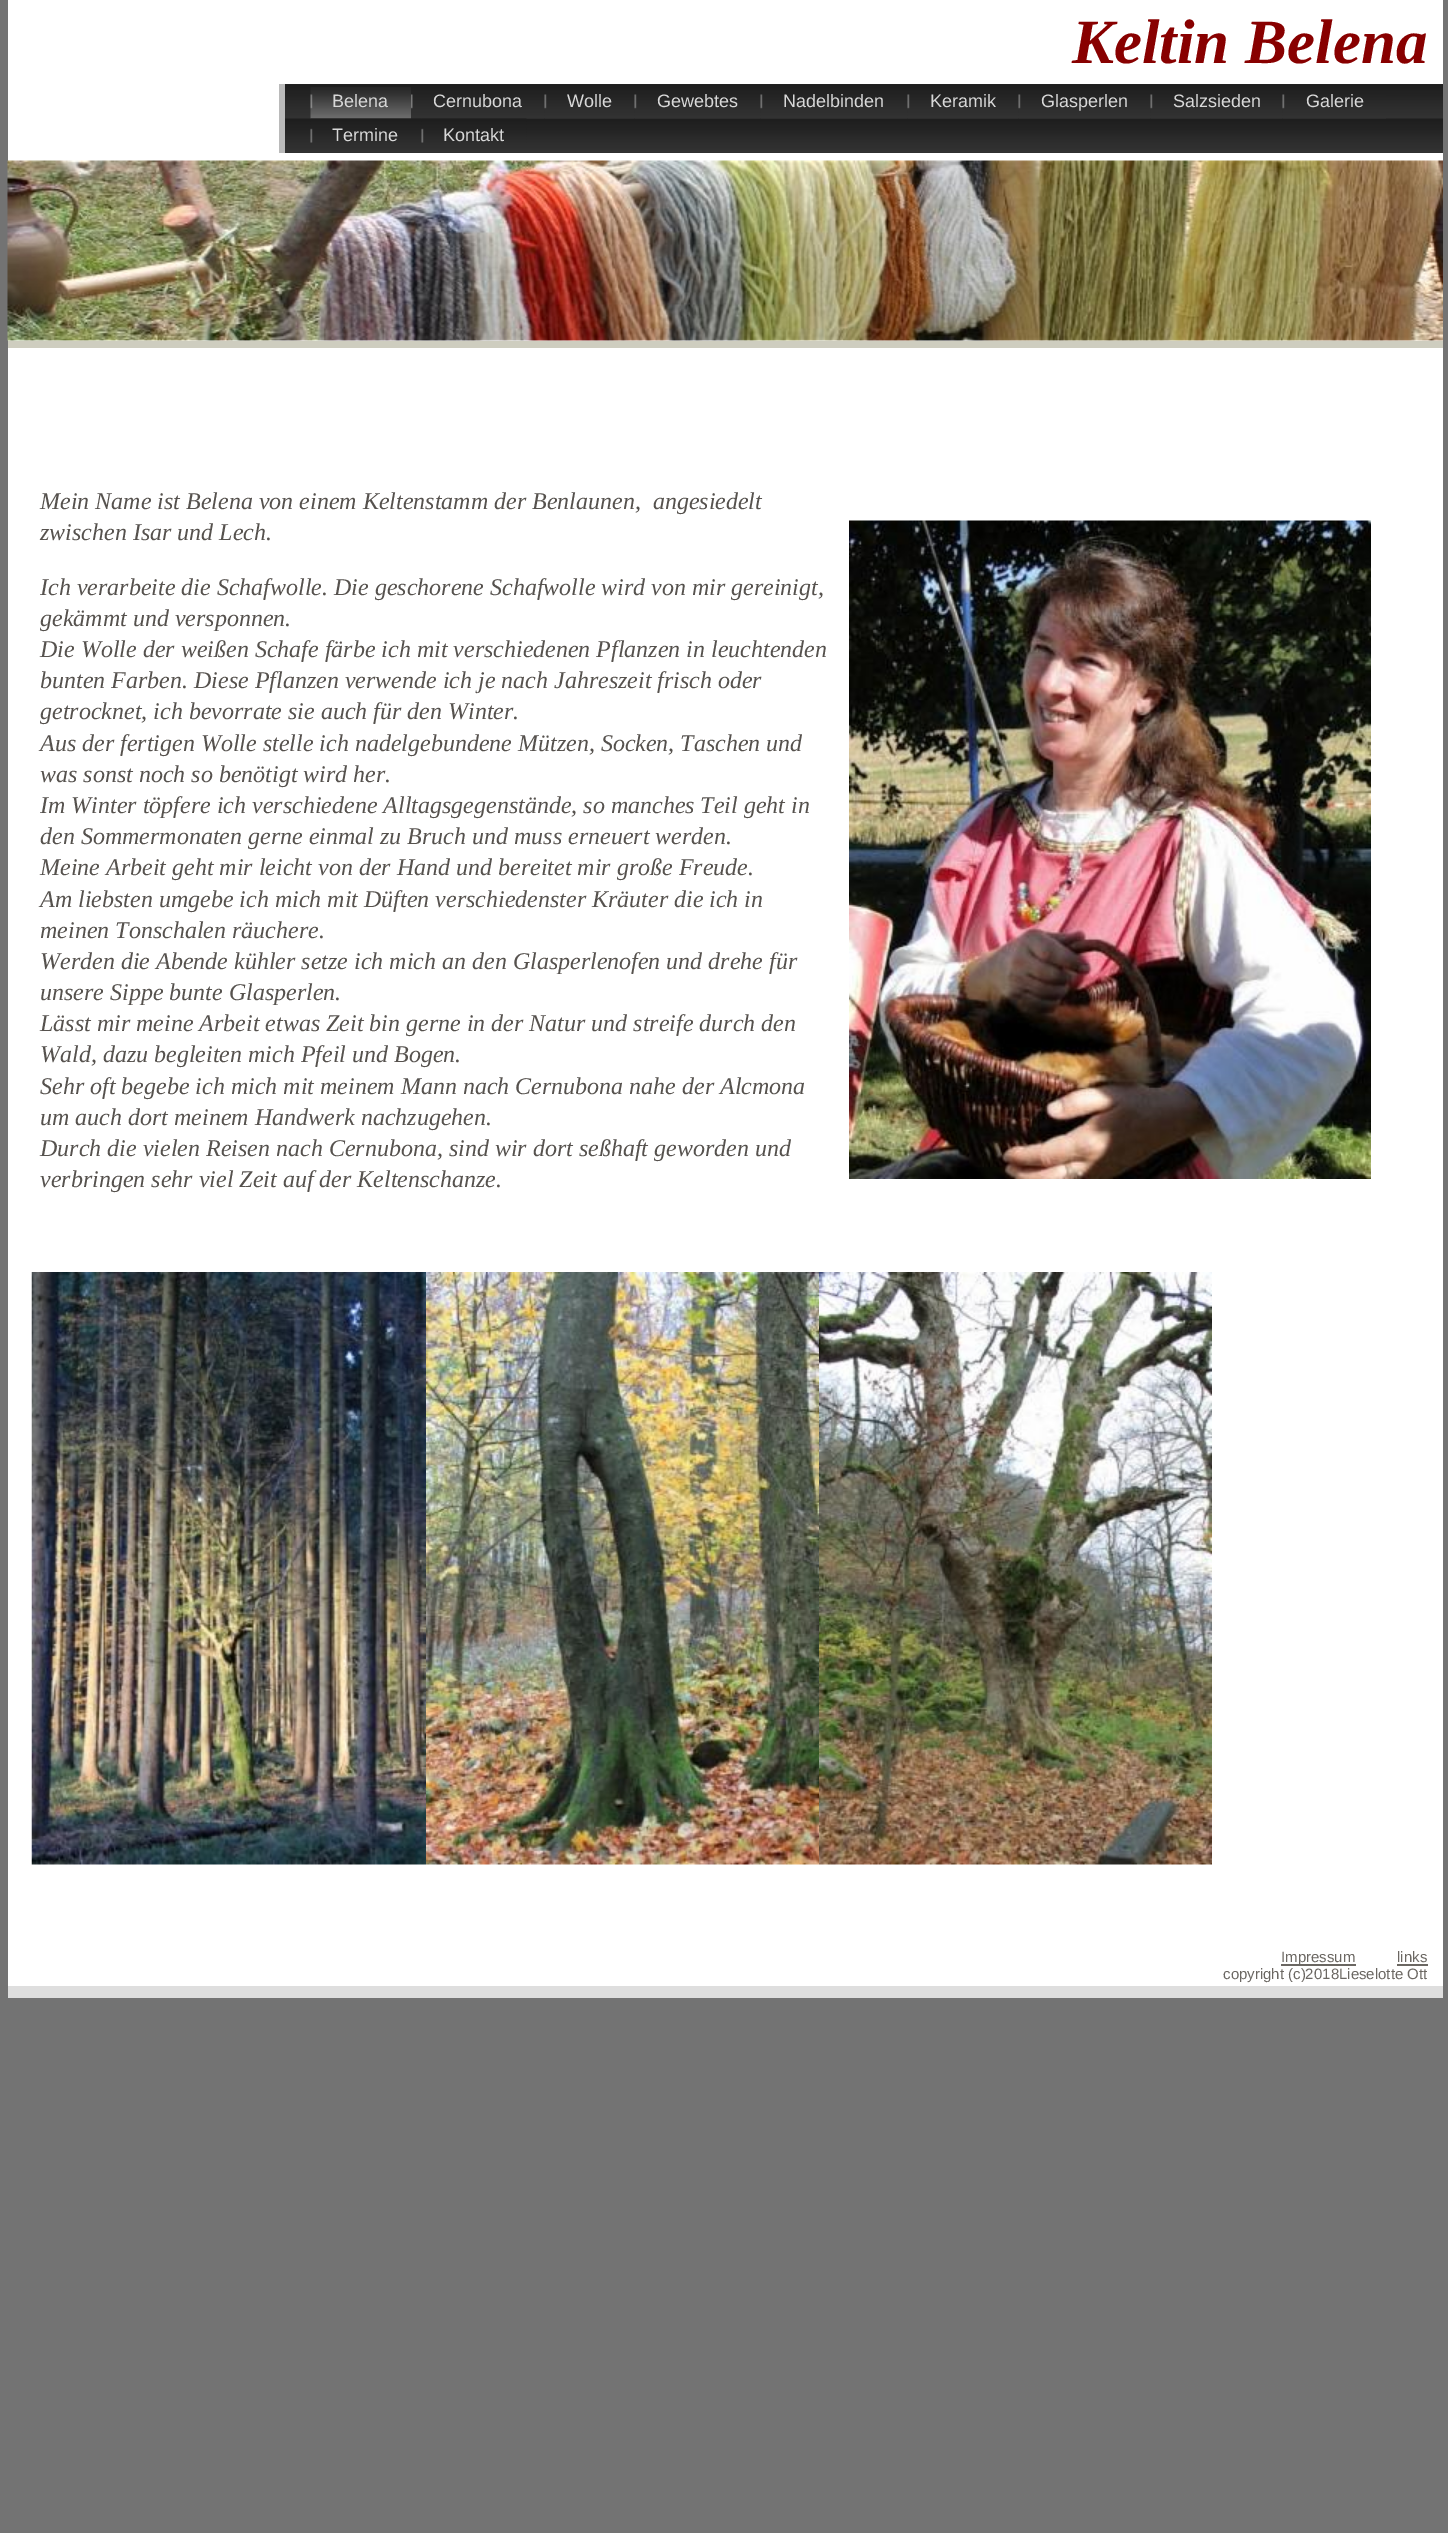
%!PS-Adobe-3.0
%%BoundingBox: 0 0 1448 2533
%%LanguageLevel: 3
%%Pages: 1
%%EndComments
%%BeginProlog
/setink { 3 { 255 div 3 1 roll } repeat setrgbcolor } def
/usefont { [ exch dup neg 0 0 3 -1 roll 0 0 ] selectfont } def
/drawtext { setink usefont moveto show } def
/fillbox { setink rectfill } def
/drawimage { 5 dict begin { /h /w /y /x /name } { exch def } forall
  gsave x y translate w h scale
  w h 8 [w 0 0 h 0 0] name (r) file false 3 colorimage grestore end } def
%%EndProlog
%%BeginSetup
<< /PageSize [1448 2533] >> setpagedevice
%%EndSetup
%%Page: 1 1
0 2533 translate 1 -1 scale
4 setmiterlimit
0 0 1448 2533 115 115 115 fillbox
8 0 1435 1986 255 255 255 fillbox
(Keltin Belena) 1072 63 /LiberationSerif-BoldItalic 63 136 0 0 drawtext
(assets/img1.rgb) 285 84 1158 69 drawimage
279 84 6 69 186 186 186 fillbox
(assets/img2.rgb) 310 87 101 32 drawimage
(Belena) 332 107 /LiberationSans-Regular 18 216 216 216 drawtext
(assets/img3.rgb) 411 94 133 25 drawimage
(Cernubona) 433 107 /LiberationSans-Regular 18 216 216 216 drawtext
(assets/img4.rgb) 544 94 90 25 drawimage
(Wolle) 567 107 /LiberationSans-Regular 18 216 216 216 drawtext
(assets/img5.rgb) 634 94 126 25 drawimage
(Gewebtes) 657 107 /LiberationSans-Regular 18 216 216 216 drawtext
(assets/img6.rgb) 760 94 147 25 drawimage
(Nadelbinden) 783 107 /LiberationSans-Regular 18 216 216 216 drawtext
(assets/img7.rgb) 907 94 111 25 drawimage
(Keramik) 930 107 /LiberationSans-Regular 18 216 216 216 drawtext
(assets/img8.rgb) 1018 94 132 25 drawimage
(Glasperlen) 1041 107 /LiberationSans-Regular 18 216 216 216 drawtext
(assets/img8.rgb) 1150 94 132 25 drawimage
(Salzsieden) 1173 107 /LiberationSans-Regular 18 216 216 216 drawtext
(assets/img9.rgb) 1282 94 104 25 drawimage
(Galerie) 1306 107 /LiberationSans-Regular 18 216 216 216 drawtext
(assets/img10.rgb) 310 118 112 25 drawimage
(Termine) 332 141 /LiberationSans-Regular 18 216 216 216 drawtext
(assets/img11.rgb) 421 118 106 25 drawimage
(Kontakt) 443 141 /LiberationSans-Regular 18 216 216 216 drawtext
(assets/img12.rgb) 7 160 1436 181 drawimage
8 341 1435 7 206 205 191 fillbox
(Mein Name ist Belena von einem Keltenstamm der Benlaunen,  angesiedelt) 40 509 /LiberationSerif-Italic 24 86 82 78 drawtext
(zwischen Isar und Lech.) 40 540 /LiberationSerif-Italic 24 86 82 78 drawtext
(Ich verarbeite die Schafwolle. Die geschorene Schafwolle wird von mir gereinigt,) 40 595 /LiberationSerif-Italic 24 86 82 78 drawtext
(gekämmt und versponnen.) 40 626 /LiberationSerif-Italic 24 86 82 78 drawtext
(Die Wolle der weißen Schafe färbe ich mit verschiedenen Pflanzen in leuchtenden) 40 657 /LiberationSerif-Italic 24 86 82 78 drawtext
(bunten Farben. Diese Pflanzen verwende ich je nach Jahreszeit frisch oder) 40 688 /LiberationSerif-Italic 24 86 82 78 drawtext
(getrocknet, ich bevorrate sie auch für den Winter.) 40 719 /LiberationSerif-Italic 24 86 82 78 drawtext
(Aus der fertigen Wolle stelle ich nadelgebundene Mützen, Socken, Taschen und) 40 751 /LiberationSerif-Italic 24 86 82 78 drawtext
(was sonst noch so benötigt wird her.) 40 782 /LiberationSerif-Italic 24 86 82 78 drawtext
(Im Winter töpfere ich verschiedene Alltagsgegenstände, so manches Teil geht in) 40 813 /LiberationSerif-Italic 24 86 82 78 drawtext
(den Sommermonaten gerne einmal zu Bruch und muss erneuert werden.) 40 844 /LiberationSerif-Italic 24 86 82 78 drawtext
(Meine Arbeit geht mir leicht von der Hand und bereitet mir große Freude.) 40 875 /LiberationSerif-Italic 24 86 82 78 drawtext
(Am liebsten umgebe ich mich mit Düften verschiedenster Kräuter die ich in) 40 907 /LiberationSerif-Italic 24 86 82 78 drawtext
(meinen Tonschalen räuchere.) 40 938 /LiberationSerif-Italic 24 86 82 78 drawtext
(Werden die Abende kühler setze ich mich an den Glasperlenofen und drehe für) 40 969 /LiberationSerif-Italic 24 86 82 78 drawtext
(unsere Sippe bunte Glasperlen.) 40 1000 /LiberationSerif-Italic 24 86 82 78 drawtext
(Lässt mir meine Arbeit etwas Zeit bin gerne in der Natur und streife durch den) 40 1031 /LiberationSerif-Italic 24 86 82 78 drawtext
(Wald, dazu begleiten mich Pfeil und Bogen.) 40 1062 /LiberationSerif-Italic 24 86 82 78 drawtext
(Sehr oft begebe ich mich mit meinem Mann nach Cernubona nahe der Alcmona) 40 1094 /LiberationSerif-Italic 24 86 82 78 drawtext
(um auch dort meinem Handwerk nachzugehen.) 40 1125 /LiberationSerif-Italic 24 86 82 78 drawtext
(Durch die vielen Reisen nach Cernubona, sind wir dort seßhaft geworden und) 40 1156 /LiberationSerif-Italic 24 86 82 78 drawtext
(verbringen sehr viel Zeit auf der Keltenschanze.) 40 1187 /LiberationSerif-Italic 24 86 82 78 drawtext
(assets/img13.rgb) 849 520 522 659 drawimage
(assets/img14.rgb) 31 1272 395 593 drawimage
(assets/img15.rgb) 426 1272 393 593 drawimage
(assets/img16.rgb) 819 1272 393 593 drawimage
1281 1964 75 2 107 103 98 fillbox
(Impressum) 1281 1962 /LiberationSans-Regular 15 107 103 98 drawtext
(links) 1397 1962 /LiberationSans-Regular 15 107 103 98 drawtext
1397 1964 31 2 107 103 98 fillbox
(copyright \(c\)2018Lieselotte Ott) 1223 1979 /LiberationSans-Regular 15 107 103 98 drawtext
8 1986 1435 12 222 222 222 fillbox
showpage
%%EOF
